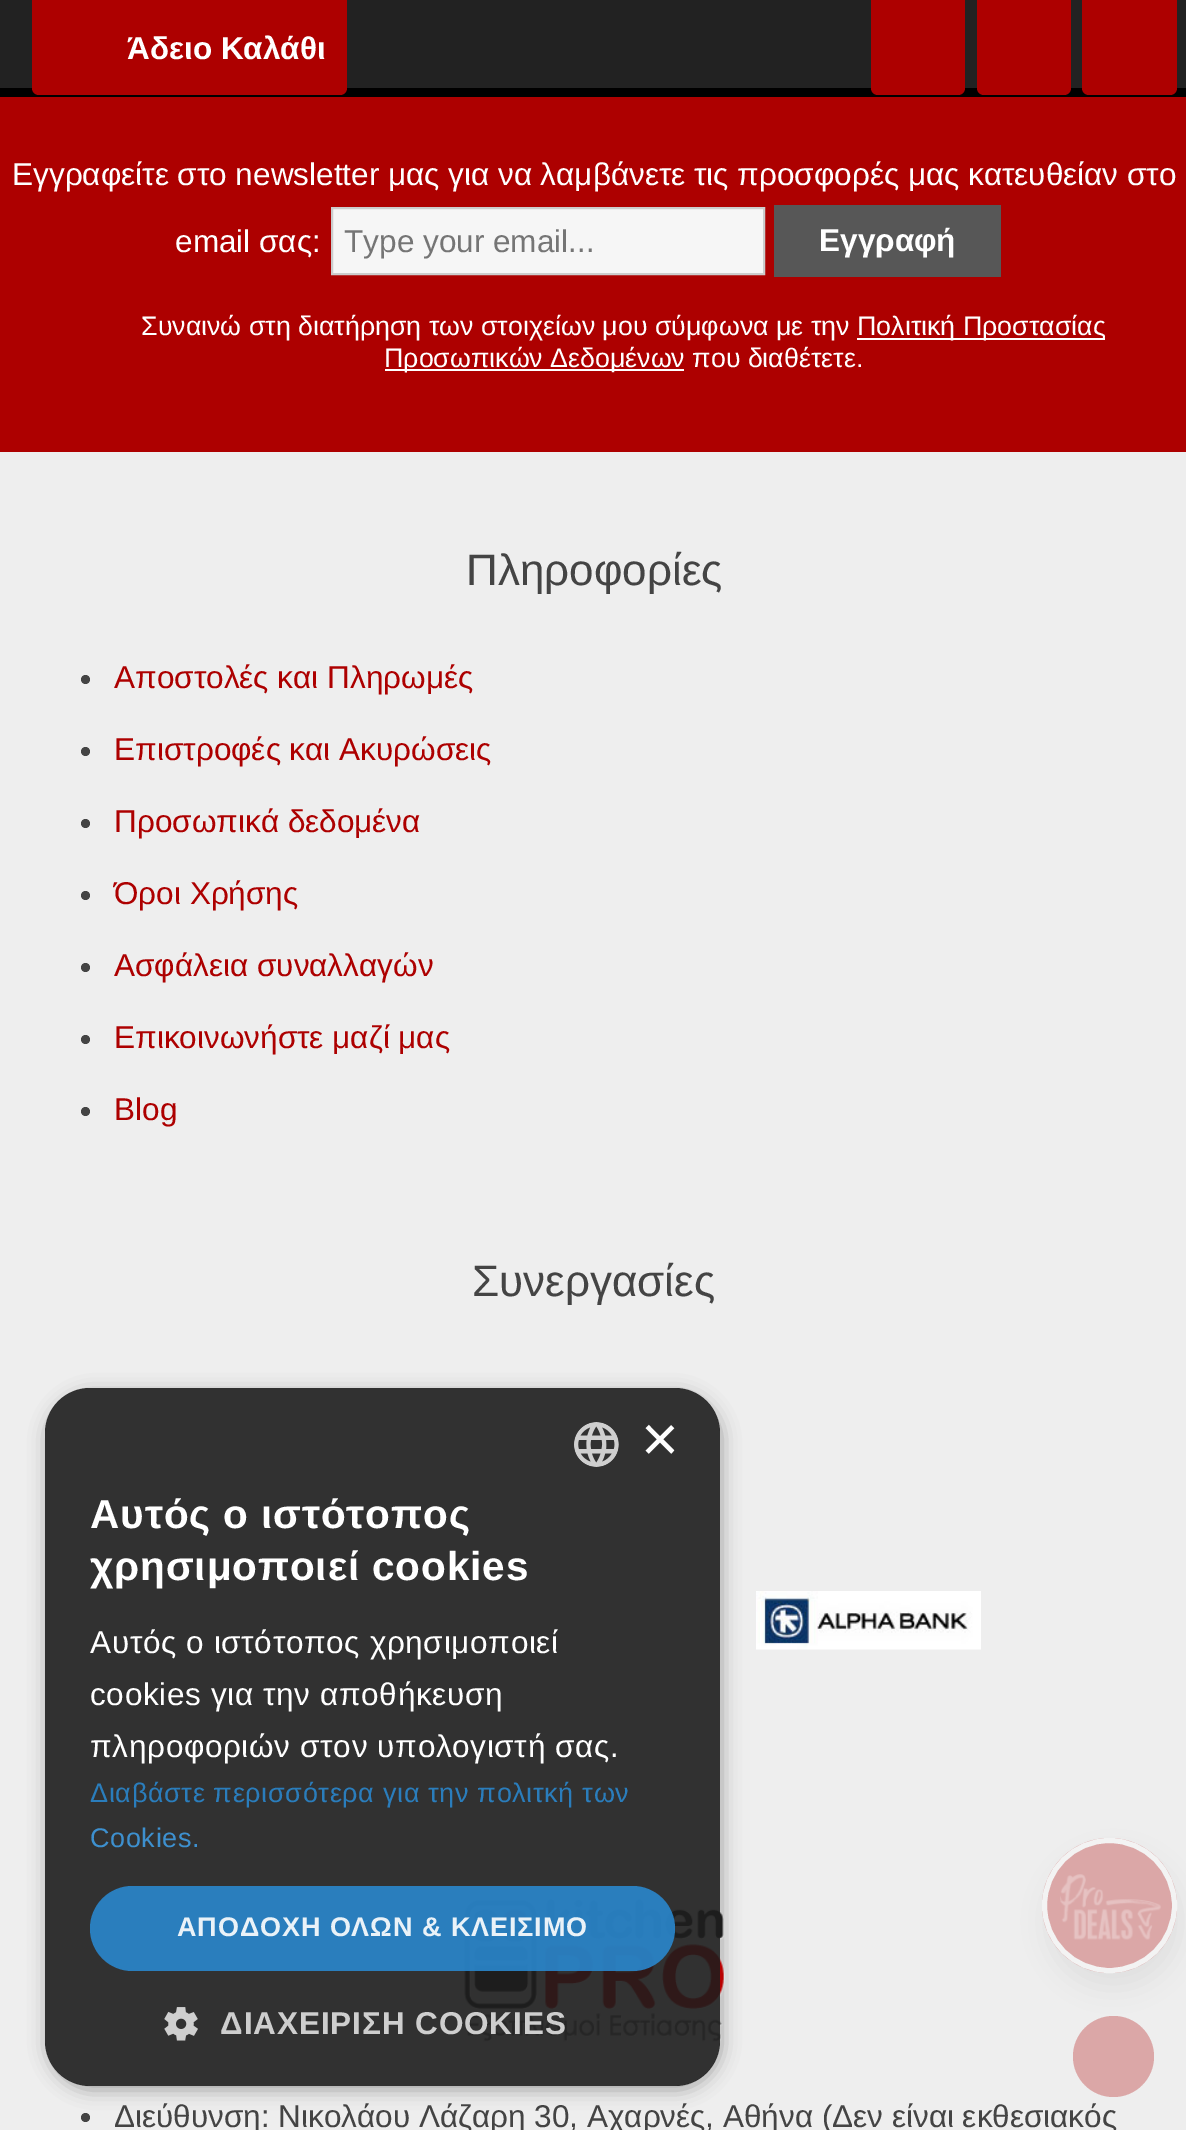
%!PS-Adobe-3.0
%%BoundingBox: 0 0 1186 2130
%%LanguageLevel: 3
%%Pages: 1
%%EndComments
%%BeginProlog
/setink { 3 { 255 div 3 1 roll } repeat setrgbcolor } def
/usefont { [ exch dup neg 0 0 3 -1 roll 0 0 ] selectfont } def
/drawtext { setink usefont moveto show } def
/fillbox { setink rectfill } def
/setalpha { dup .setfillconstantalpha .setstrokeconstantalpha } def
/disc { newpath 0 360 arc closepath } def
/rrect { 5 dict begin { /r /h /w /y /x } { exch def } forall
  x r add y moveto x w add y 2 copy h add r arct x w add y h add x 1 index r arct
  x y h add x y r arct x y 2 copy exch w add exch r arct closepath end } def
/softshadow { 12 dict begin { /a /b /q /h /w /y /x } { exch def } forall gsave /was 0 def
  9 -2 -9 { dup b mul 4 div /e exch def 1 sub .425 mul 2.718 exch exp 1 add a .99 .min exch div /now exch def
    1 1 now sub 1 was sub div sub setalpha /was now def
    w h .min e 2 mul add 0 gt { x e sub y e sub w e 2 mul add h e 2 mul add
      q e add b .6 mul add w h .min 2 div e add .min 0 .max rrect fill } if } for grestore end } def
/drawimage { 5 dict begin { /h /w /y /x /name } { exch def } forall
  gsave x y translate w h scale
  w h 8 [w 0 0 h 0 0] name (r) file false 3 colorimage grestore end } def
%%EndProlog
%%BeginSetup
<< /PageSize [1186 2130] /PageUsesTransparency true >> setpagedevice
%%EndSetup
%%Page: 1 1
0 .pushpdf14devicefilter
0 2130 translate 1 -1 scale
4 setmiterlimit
0 0 1186 2130 0 0 0 fillbox
0 0 1186 88 34 34 34 fillbox
173 0 0 setink
871 0 moveto 965 0 lineto 965 88 lineto 965 92 962 95 958 95 curveto 878 95 lineto 874 95 871 92 871 88 curveto closepath fill
977 0 moveto 1071 0 lineto 1071 88 lineto 1071 92 1068 95 1064 95 curveto 984 95 lineto 980 95 977 92 977 88 curveto closepath fill
1082 0 moveto 1177 0 lineto 1177 88 lineto 1177 92 1174 95 1170 95 curveto 1089 95 lineto 1085 95 1082 92 1082 88 curveto closepath fill
32 0 moveto 347 0 lineto 347 88 lineto 347 92 344 95 340 95 curveto 39 95 lineto 35 95 32 92 32 88 curveto closepath fill
(Άδειο Καλάθι) 127 59 /LiberationSans-Bold 31.5 255 255 255 drawtext
0 97 1186 355 173 0 0 fillbox
(Εγγραφείτε στο newsletter μας για να λαμβάνετε τις προσφορές μας κατευθείαν στο) 12 185 /LiberationSans-Regular 31.5 255 255 255 drawtext
(email σας:) 175 252 /LiberationSans-Regular 31.5 255 255 255 drawtext
246 246 246 setink
332 208 moveto 764 208 lineto 764 274 lineto 332 274 lineto closepath gsave fill grestore
204 204 204 setink
2 setlinewidth
stroke
(Type your email...) 344 252 /LiberationSans-Regular 31.5 117 117 117 drawtext
774 205 227 72 87 87 87 fillbox
(Εγγραφή) 819 251 /LiberationSans-Bold 31.5 255 255 255 drawtext
(Συναινώ στη διατήρηση των στοιχείων μου σύμφωνα με την) 141 335 /LiberationSans-Regular 26.75 255 255 255 drawtext
857 338 248 2 255 255 255 fillbox
(Πολιτική Προστασίας) 857 335 /LiberationSans-Regular 26.75 255 255 255 drawtext
385 369 299 2 255 255 255 fillbox
(Προσωπικών Δεδομένων που διαθέτετε.) 384 367 /LiberationSans-Regular 26.75 255 255 255 drawtext
0 452 1186 1678 238 238 238 fillbox
(Πληροφορίες) 466 585 /LiberationSans-Regular 44 68 68 68 drawtext
85.5 679.5 4.5 disc fill
(Αποστολές και Πληρωμές) 114 688 /LiberationSans-Regular 31.5 173 0 0 drawtext
68 68 68 setink
85.5 751.5 4.5 disc fill
(Επιστροφές και Ακυρώσεις) 114 760 /LiberationSans-Regular 31.5 173 0 0 drawtext
68 68 68 setink
85.5 823.5 4.5 disc fill
(Προσωπικά δεδομένα) 114 832 /LiberationSans-Regular 31.5 173 0 0 drawtext
68 68 68 setink
85.5 895.5 4.5 disc fill
(Όροι Χρήσης) 114 904 /LiberationSans-Regular 31.5 173 0 0 drawtext
68 68 68 setink
85.5 967.5 4.5 disc fill
(Ασφάλεια συναλλαγών) 114 976 /LiberationSans-Regular 31.5 173 0 0 drawtext
68 68 68 setink
85.5 1039.5 4.5 disc fill
(Επικοινωνήστε μαζί μας) 114 1048 /LiberationSans-Regular 31.5 173 0 0 drawtext
68 68 68 setink
85.5 1111.5 4.5 disc fill
(Blog) 114 1120 /LiberationSans-Regular 31.5 173 0 0 drawtext
(Συνεργασίες) 472 1296 /LiberationSans-Regular 44 68 68 68 drawtext
(assets/img1.rgb) 756 1591 225 59 drawimage
(assets/img2.rgb) 464 1899 261 143 drawimage
85.5 2117.5 4.5 disc fill
(Διεύθυνση: Νικολάου Λάζαρη 30, Αχαρνές, Αθήνα \(Δεν είναι εκθεσιακός) 114 2127 /LiberationSans-Regular 31.5 68 68 68 drawtext
219 167 167 setink
1113.5 2056.5 40.5 disc fill
0 0 0 setink
1046 1854 135 135 67.5 14.5 0.06 softshadow
219 167 167 setink
1109.5 1905.5 67.5 disc fill
(assets/img3.rgb) 1060 1874 101 66 drawimage
243 243 243 setink
5 setlinewidth
1109.5 1905.5 65 disc stroke
gsave
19 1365 moveto 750 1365 lineto 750 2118 lineto 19 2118 lineto closepath 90 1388 moveto 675 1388 lineto 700 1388 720 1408 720 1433 curveto 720 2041 lineto 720 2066 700 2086 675 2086 curveto 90 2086 lineto 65 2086 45 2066 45 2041 curveto 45 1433 lineto 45 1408 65 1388 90 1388 curveto closepath eoclip newpath
0 0 0 setink
47 1393 675 697 45 9 0.32 softshadow
grestore
0.9 setalpha
28 28 28 setink
45 1388 675 698 45 rrect fill
1 setalpha
(assets/img4.rgb) 574 1422 45 45 drawimage
(×) 641 1461 /LiberationSans-Regular 65 255 255 255 drawtext
/LiberationSans-Bold 40.5 usefont
90 1528 moveto 0.9 0 (Αυτός ο ιστότοπος) ashow
90 1580 moveto 0.9 0 (χρησιμοποιεί cookies) ashow
/LiberationSans-Regular 31.5 usefont
90 1653 moveto 0.65 0 (Αυτός ο ιστότοπος χρησιμοποιεί) ashow
90 1705 moveto 0.65 0 (cookies για την αποθήκευση) ashow
90 1757 moveto 0.65 0 (πληροφοριών στον υπολογιστή σας.) ashow
/LiberationSans-Regular 27 usefont
42 125 188 setink
90 1802 moveto 0.65 0 (Διαβάστε περισσότερα για την πολιτκή των) ashow
61 144 207 setink
90 1847 moveto 0.65 0 (Cookies.) ashow
0.9 setalpha
41 134 204 setink
90 1886 585 85 42.5 rrect fill
/LiberationSans-Bold 27 usefont
1 setalpha
234 242 248 setink
177 1936 moveto 0.9 0 (ΑΠΟΔΟΧΗ ΟΛΩΝ & ΚΛΕΙΣΙΜΟ) ashow
(assets/img5.rgb) 164 2007 34 34 drawimage
/LiberationSans-Bold 31.5 usefont
206 206 206 setink
220 2034 moveto 0.9 0 (ΔΙΑΧΕΙΡΙΣΗ COOKIES) ashow
.poppdf14devicefilter showpage
%%EOF
